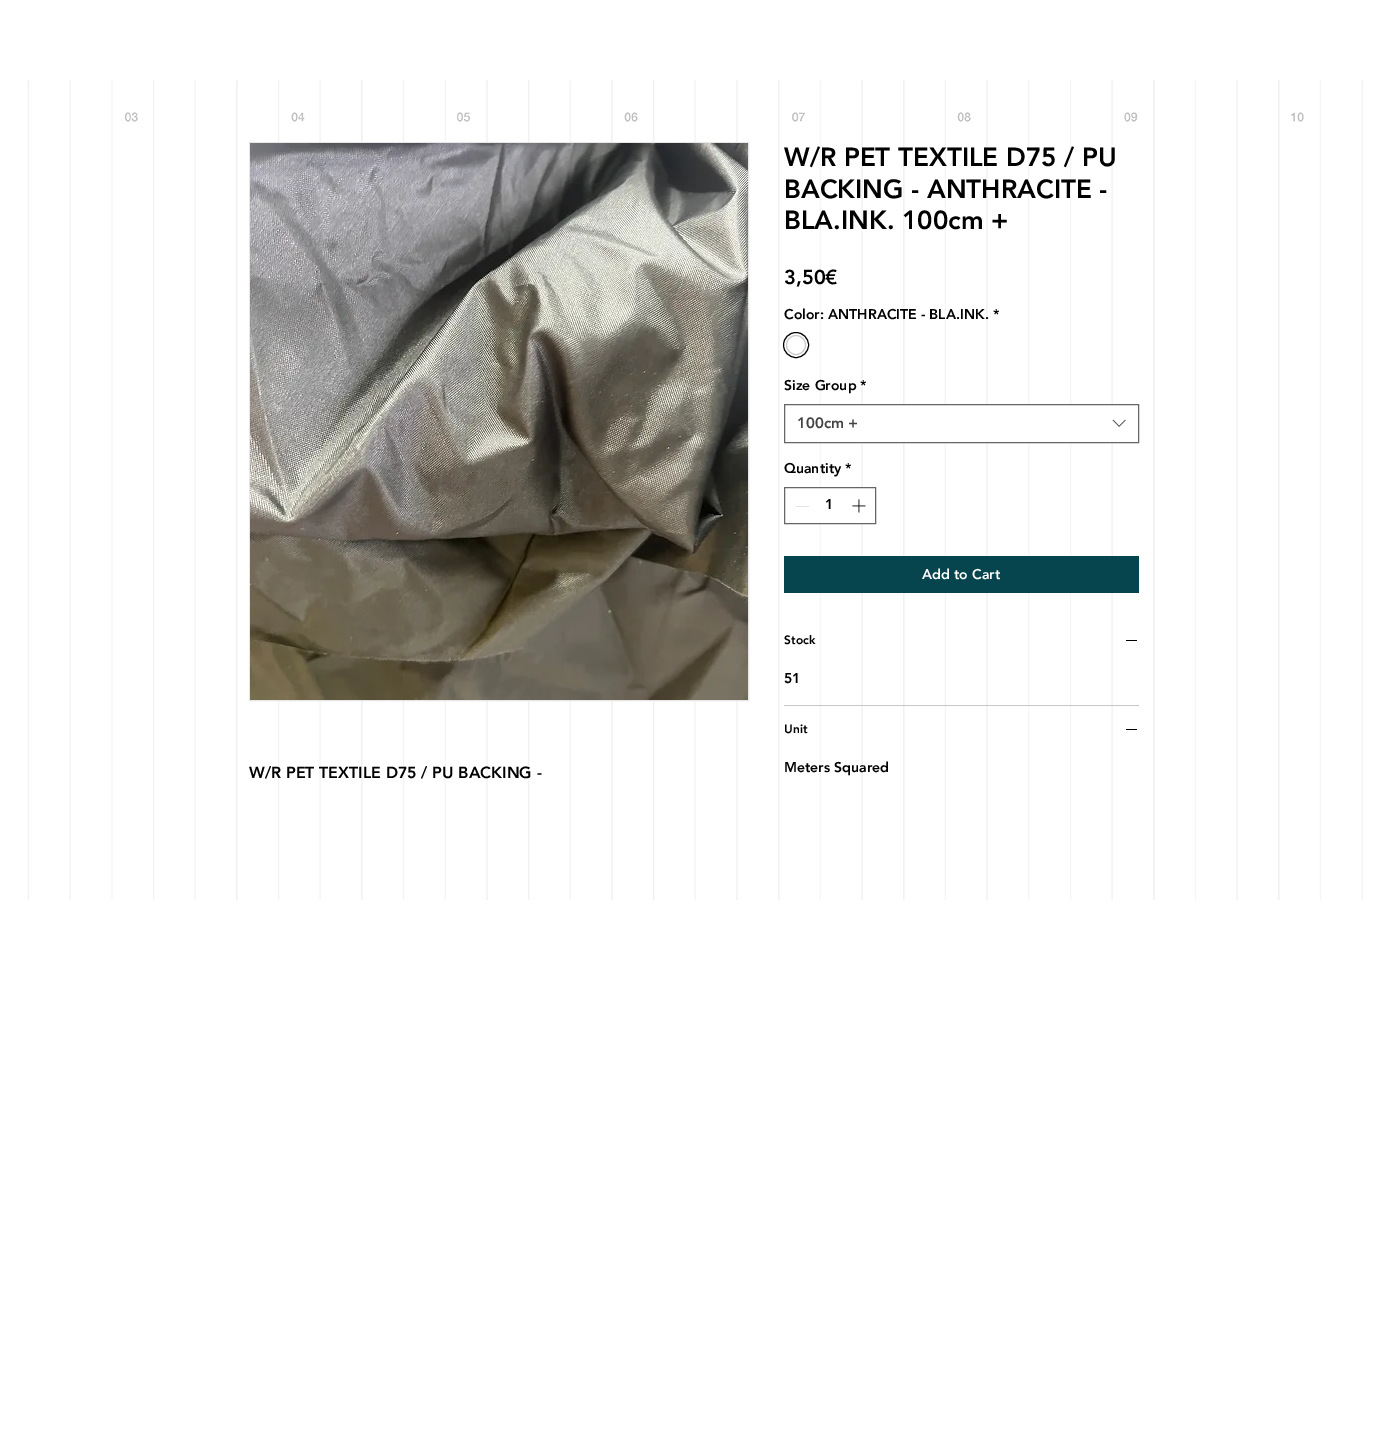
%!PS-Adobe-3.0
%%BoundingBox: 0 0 1387 1448
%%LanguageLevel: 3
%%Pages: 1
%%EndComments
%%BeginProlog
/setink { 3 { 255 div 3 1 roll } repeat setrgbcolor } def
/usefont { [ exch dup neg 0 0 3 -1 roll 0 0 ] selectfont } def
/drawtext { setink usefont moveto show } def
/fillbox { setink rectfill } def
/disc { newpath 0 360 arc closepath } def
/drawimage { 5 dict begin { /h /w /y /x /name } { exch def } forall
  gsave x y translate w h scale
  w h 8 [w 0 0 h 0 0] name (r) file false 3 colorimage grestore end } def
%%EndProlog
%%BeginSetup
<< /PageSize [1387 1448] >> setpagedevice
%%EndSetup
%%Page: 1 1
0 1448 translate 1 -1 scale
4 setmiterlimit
0 0 1387 1448 255 255 255 fillbox
(assets/img1.rgb) 27 80 1336 820 drawimage
232 230 230 setink
249.5 142.5 499 558 rectstroke
(assets/img2.rgb) 250 143 498 557 drawimage
(W/R PET TEXTILE D75 / PU BACKING -) 249 778 /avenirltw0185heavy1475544-Black 16 0 0 0 drawtext
(W/R PET TEXTILE D75 / PU) 784 166 /avenirltw0185heavy1475544-Black 26 0 0 0 drawtext
(BACKING - ANTHRACITE -) 784 198 /avenirltw0185heavy1475544-Black 26 0 0 0 drawtext
(BLA.INK. 100cm +) 784 229 /avenirltw0185heavy1475544-Black 26 0 0 0 drawtext
(3,50€) 784 284 /avenirltw0185heavy1475544-Black 20 0 0 0 drawtext
(Color: ANTHRACITE - BLA.INK. *) 784 319 /avenirltw0185heavy1475544-Black 14 0 0 0 drawtext
796 345 12.5 disc stroke
201 201 201 setink
796 345 9.5 disc stroke
(Size Group *) 784 390 /avenirltw0185heavy1475544-Black 14 0 0 0 drawtext
819 405 294 37 255 255 255 fillbox
102 102 102 setink
784.5 404.5 354 38 rectstroke
(100cm +) 797 428 /avenirltw0185heavy1475544-Black 15 68 68 68 drawtext
(assets/img3.rgb) 1112 419 14 8 drawimage
(Quantity *) 784 473 /avenirltw0185heavy1475544-Black 14 0 0 0 drawtext
819 488 44 35 255 255 255 fillbox
102 102 102 setink
784.5 487.5 91 36 rectstroke
796 506 13 1 227 227 227 fillbox
(1) 825 509 /avenirltw0185heavy1475544-Black 14 0 0 0 drawtext
(assets/img4.rgb) 852 499 14 14 drawimage
784 556 355 37 7 69 78 fillbox
(Add to Cart) 922 579 /avenirltw0185heavy1475544-Black 14 255 255 255 drawtext
784 705 355 1 199 199 199 fillbox
(Stock) 784 644 /avenirltw0185heavy1475544-Black 12 0 0 0 drawtext
1126 640 11 1 0 0 0 fillbox
(51) 784 683 /avenirltw0185heavy1475544-Black 14 0 0 0 drawtext
(Unit) 784 733 /avenirltw0185heavy1475544-Black 12 0 0 0 drawtext
1126 729 11 1 0 0 0 fillbox
(Meters Squared) 784 772 /avenirltw0185heavy1475544-Black 14 0 0 0 drawtext
showpage
%%EOF
